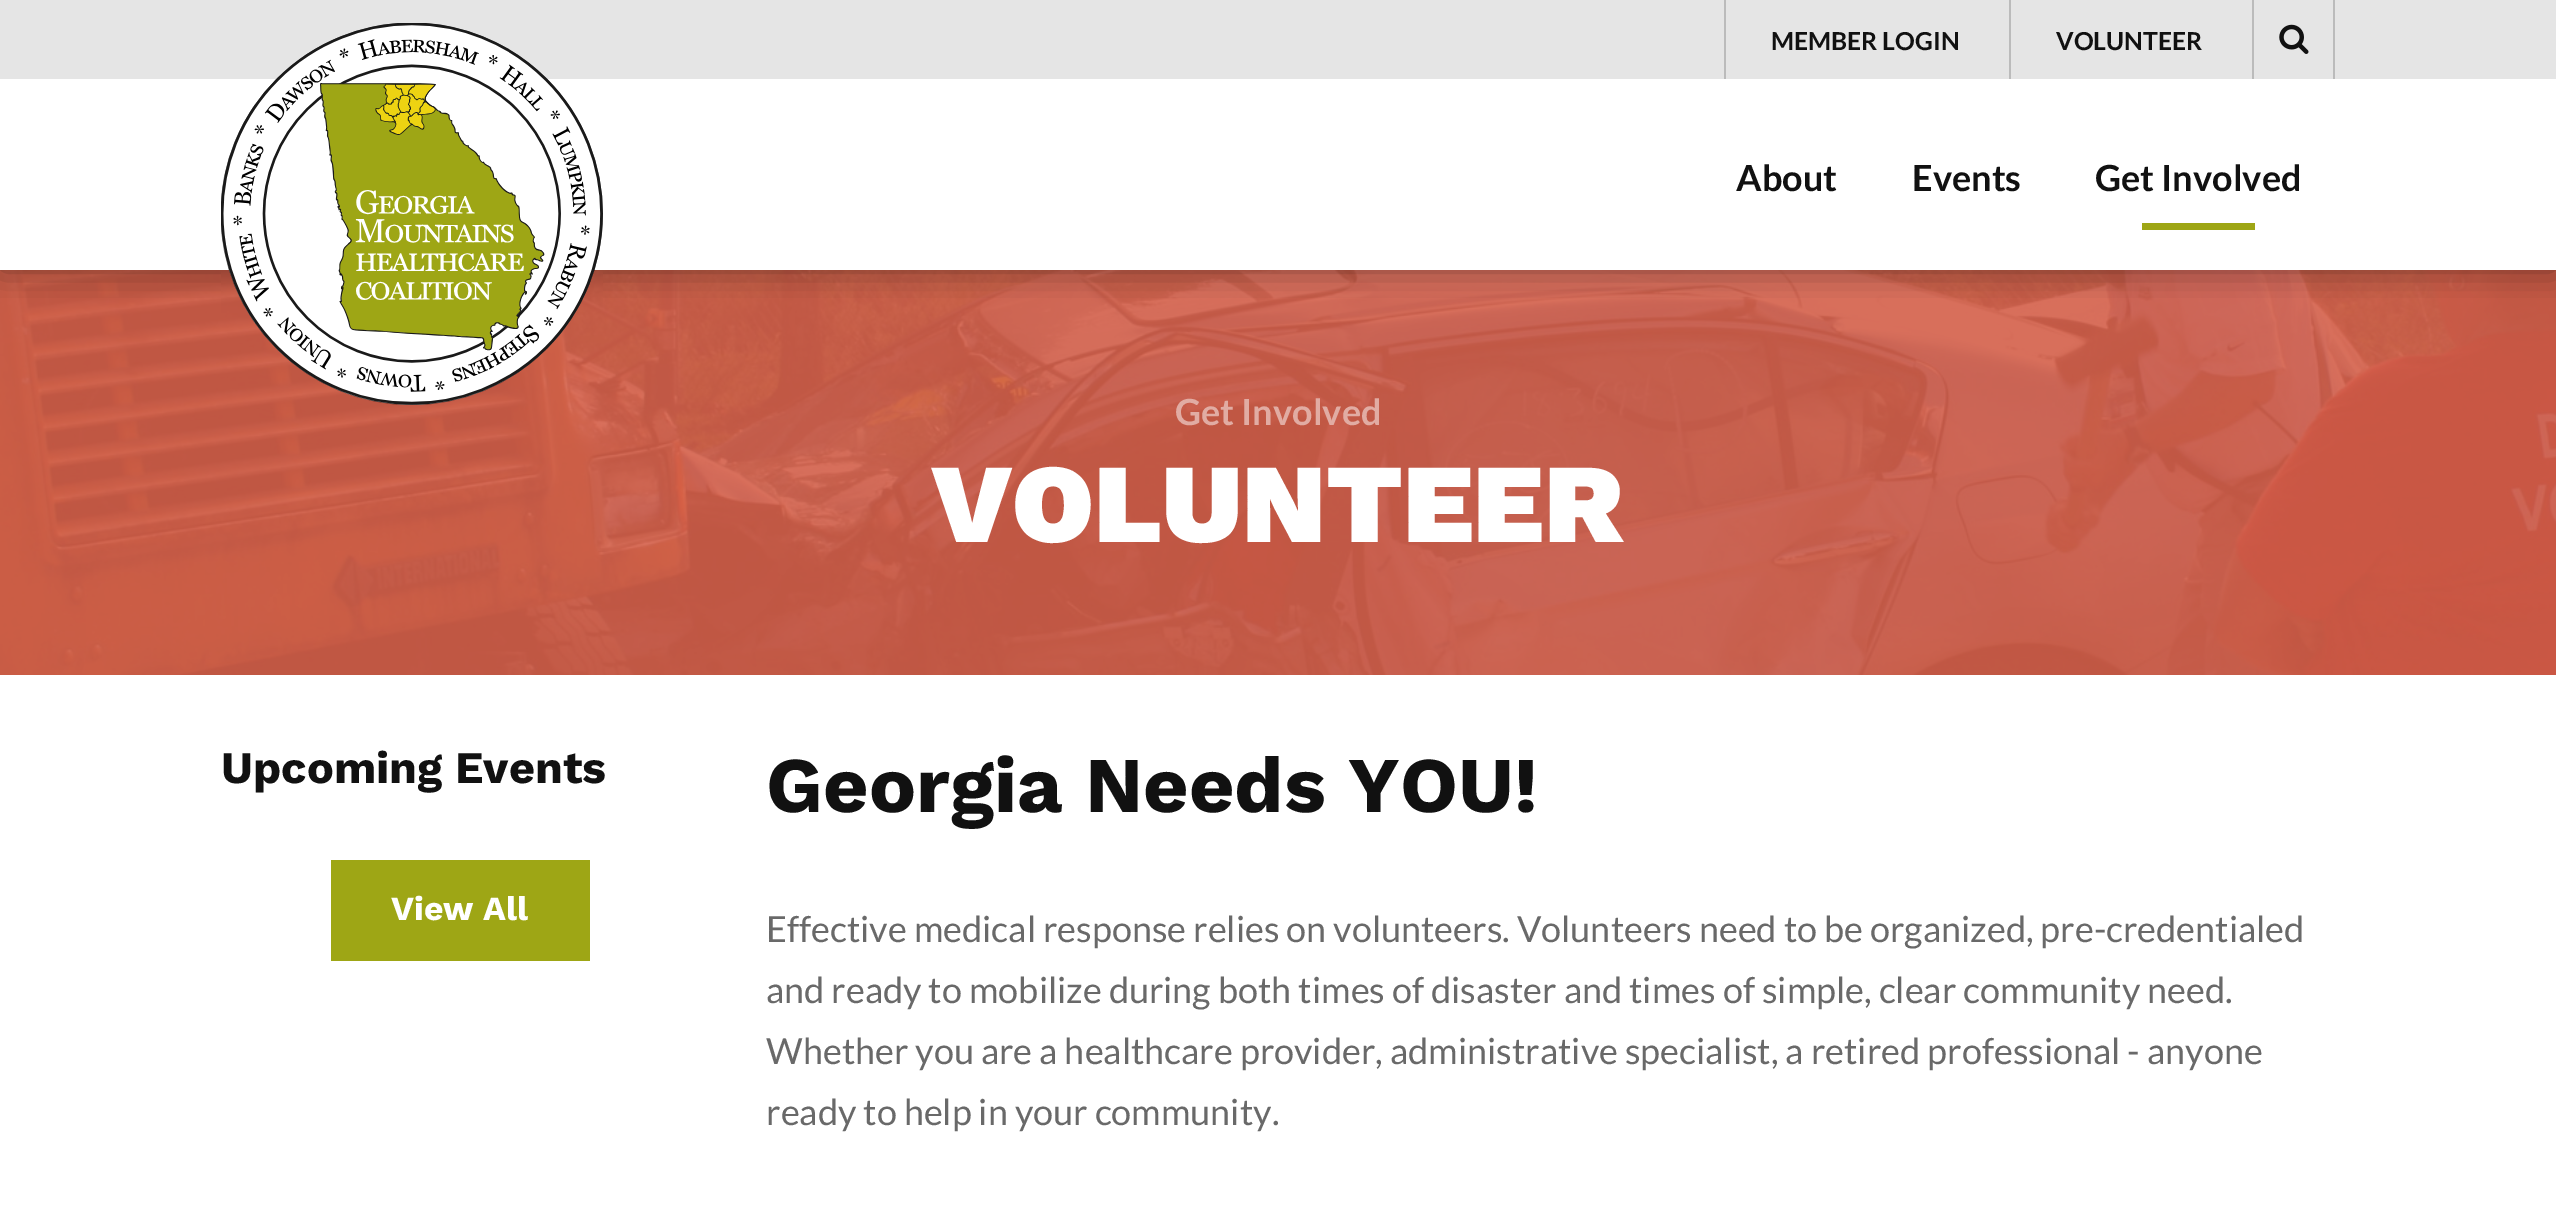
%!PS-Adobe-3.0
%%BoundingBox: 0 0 2556 1229
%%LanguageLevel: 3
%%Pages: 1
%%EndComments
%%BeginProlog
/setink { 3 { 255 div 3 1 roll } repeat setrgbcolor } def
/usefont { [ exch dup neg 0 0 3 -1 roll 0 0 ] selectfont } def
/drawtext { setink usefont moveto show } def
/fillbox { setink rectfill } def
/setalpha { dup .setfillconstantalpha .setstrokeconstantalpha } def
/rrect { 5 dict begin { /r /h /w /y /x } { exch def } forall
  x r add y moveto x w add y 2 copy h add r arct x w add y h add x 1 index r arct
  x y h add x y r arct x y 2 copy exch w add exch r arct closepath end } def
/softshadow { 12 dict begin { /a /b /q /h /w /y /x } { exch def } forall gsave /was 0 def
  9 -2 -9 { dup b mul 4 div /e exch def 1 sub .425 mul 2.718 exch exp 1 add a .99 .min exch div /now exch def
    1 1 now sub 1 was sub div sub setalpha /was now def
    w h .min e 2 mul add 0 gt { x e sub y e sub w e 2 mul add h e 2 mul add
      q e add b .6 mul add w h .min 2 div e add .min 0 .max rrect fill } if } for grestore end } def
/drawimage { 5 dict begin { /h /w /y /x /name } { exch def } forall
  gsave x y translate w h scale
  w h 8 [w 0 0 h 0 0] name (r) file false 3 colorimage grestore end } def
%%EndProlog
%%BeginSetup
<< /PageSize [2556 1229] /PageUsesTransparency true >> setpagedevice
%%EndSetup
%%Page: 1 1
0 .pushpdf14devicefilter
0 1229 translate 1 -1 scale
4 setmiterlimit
0 0 2556 1229 255 255 255 fillbox
(assets/img3.rgb) 0 270 2556 405 drawimage
gsave
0 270 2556 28 rectclip
0 0 0 setink
0 0 2556 270 0 17 0.4 softshadow
grestore
0 0 2556 79 229 229 229 fillbox
(assets/img1.rgb) 221 23 382 382 drawimage
1724 0 2 79 187 187 187 fillbox
(MEMBER LOGIN) 1771 50 /Lato-Bold 24.75 17 17 17 drawtext
2009 0 2 79 187 187 187 fillbox
(VOLUNTEER) 2056 50 /Lato-Bold 24.75 17 17 17 drawtext
2333 0 2 79 187 187 187 fillbox
2252 0 2 79 187 187 187 fillbox
(assets/img2.rgb) 2279 24 30 30 drawimage
(About) 1736 191 /Lato-Bold 36 17 17 17 drawtext
(Events) 1912 191 /Lato-Bold 36 17 17 17 drawtext
(Get Involved) 2095 191 /Lato-Bold 36 17 17 17 drawtext
2142 223 113 7 158 166 21 fillbox
(Get Involved) 1175 425 /Lato-Bold 36 225 172 163 drawtext
(VOLUNTEER) 932 542 /WorkSans-Black 112.5 255 255 255 drawtext
(Upcoming Events) 221 783 /WorkSans-Bold 45 17 17 17 drawtext
331 860 259 101 158 166 21 fillbox
(View All) 391 920 /WorkSans-Bold 33.75 255 255 255 drawtext
(Georgia Needs YOU!) 766 812 /WorkSans-Bold 78.75 17 17 17 drawtext
(Effective medical response relies on volunteers. Volunteers need to be organized, pre-credentialed) 766 942 /Lato-Regular 36 105 105 105 drawtext
(and ready to mobilize during both times of disaster and times of simple, clear community need.) 766 1003 /Lato-Regular 36 105 105 105 drawtext
(Whether you are a healthcare provider, administrative specialist, a retired professional - anyone) 766 1064 /Lato-Regular 36 105 105 105 drawtext
(ready to help in your community.) 766 1125 /Lato-Regular 36 105 105 105 drawtext
.poppdf14devicefilter showpage
%%EOF
